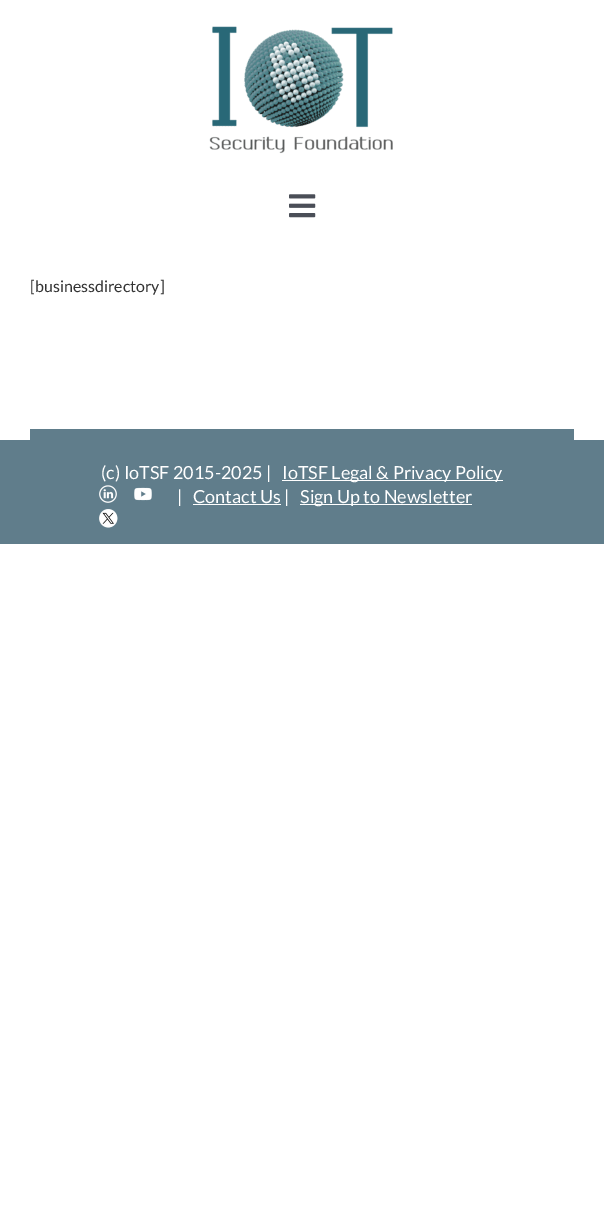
%!PS-Adobe-3.0
%%BoundingBox: 0 0 604 1209
%%LanguageLevel: 3
%%Pages: 1
%%EndComments
%%BeginProlog
/setink { 3 { 255 div 3 1 roll } repeat setrgbcolor } def
/usefont { [ exch dup neg 0 0 3 -1 roll 0 0 ] selectfont } def
/drawtext { setink usefont moveto show } def
/fillbox { setink rectfill } def
/drawimage { 5 dict begin { /h /w /y /x /name } { exch def } forall
  gsave x y translate w h scale
  w h 8 [w 0 0 h 0 0] name (r) file false 3 colorimage grestore end } def
%%EndProlog
%%BeginSetup
<< /PageSize [604 1209] >> setpagedevice
%%EndSetup
%%Page: 1 1
0 1209 translate 1 -1 scale
4 setmiterlimit
0 0 604 1209 255 255 255 fillbox
(assets/img1.rgb) 209 26 184 128 drawimage
(assets/img2.rgb) 289 194 27 24 drawimage
([businessdirectory]) 30 292 /Lato-Regular 16 51 51 51 drawtext
30 429 544 11 96 125 139 fillbox
0 440 604 104 96 125 139 fillbox
(\(c\) IoTSF 2015-2025 |) 101 479 /Lato-Regular 18 255 255 255 drawtext
282 480 221 1 255 255 255 fillbox
(IoTSF Legal & Privacy Policy) 282 479 /Lato-Regular 18 255 255 255 drawtext
(assets/img3.rgb) 99 485 18 18 drawimage
(assets/img4.rgb) 134 487 18 14 drawimage
(|) 177 503 /Lato-Regular 18 255 255 255 drawtext
193 504 88 1 255 255 255 fillbox
(Contact Us |) 193 503 /Lato-Regular 18 255 255 255 drawtext
300 504 172 1 255 255 255 fillbox
(Sign Up to Newsletter) 300 503 /Lato-Regular 18 255 255 255 drawtext
(assets/img5.rgb) 99 509 19 19 drawimage
showpage
%%EOF
